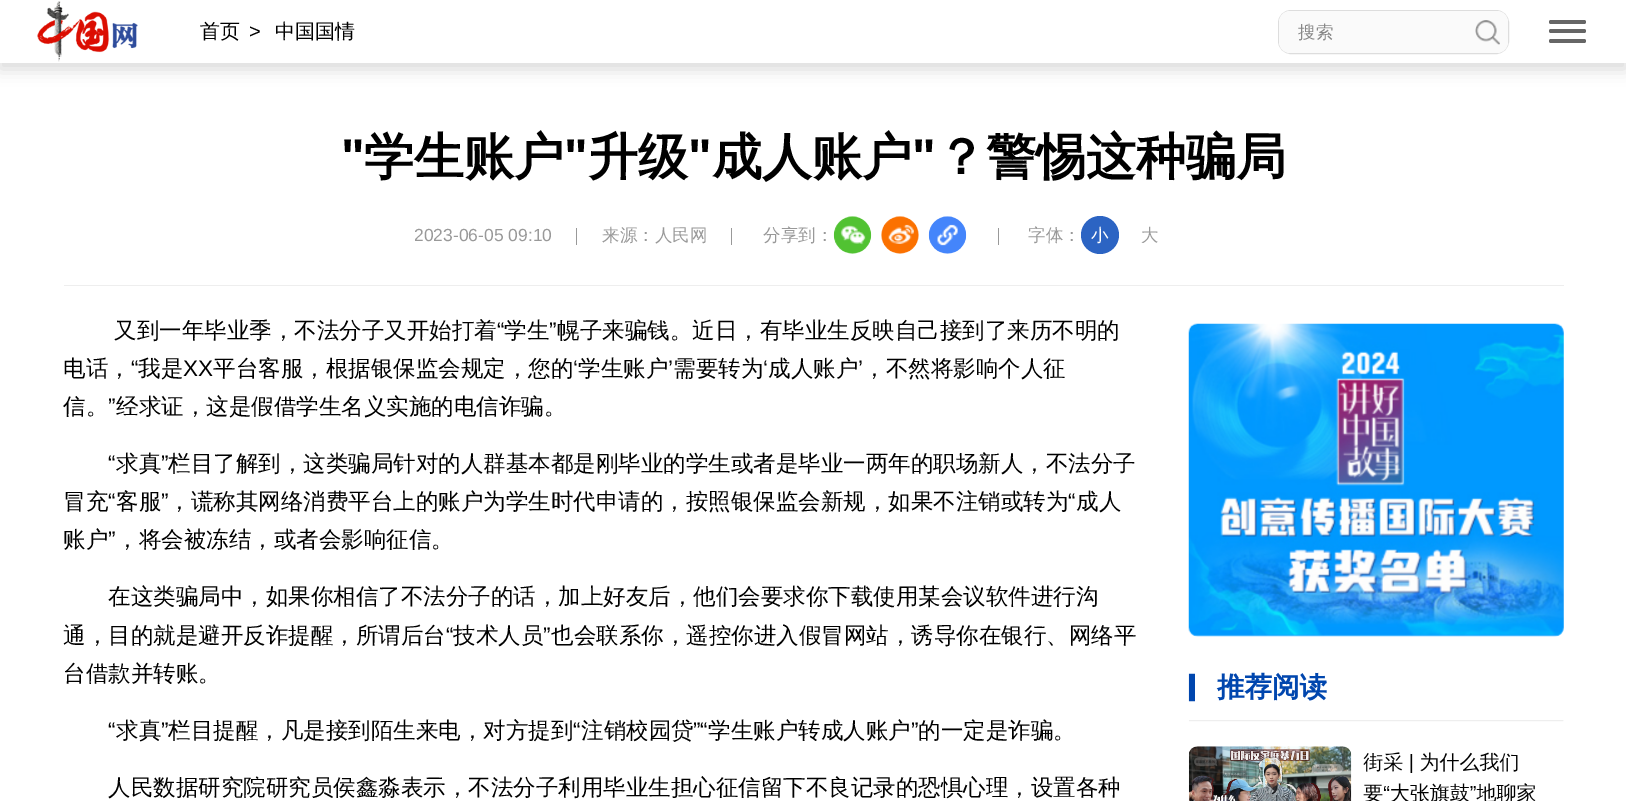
%!PS-Adobe-3.0
%%BoundingBox: 0 0 1626 801
%%LanguageLevel: 3
%%Pages: 1
%%EndComments
%%BeginProlog
/setink { 3 { 255 div 3 1 roll } repeat setrgbcolor } def
/usefont { [ exch dup neg 0 0 3 -1 roll 0 0 ] selectfont } def
/drawtext { setink usefont moveto show } def
/fillbox { setink rectfill } def
/setalpha { dup .setfillconstantalpha .setstrokeconstantalpha } def
/disc { newpath 0 360 arc closepath } def
/rrect { 5 dict begin { /r /h /w /y /x } { exch def } forall
  x r add y moveto x w add y 2 copy h add r arct x w add y h add x 1 index r arct
  x y h add x y r arct x y 2 copy exch w add exch r arct closepath end } def
/softshadow { 12 dict begin { /a /b /q /h /w /y /x } { exch def } forall gsave /was 0 def
  9 -2 -9 { dup b mul 4 div /e exch def 1 sub .425 mul 2.718 exch exp 1 add a .99 .min exch div /now exch def
    1 1 now sub 1 was sub div sub setalpha /was now def
    w h .min e 2 mul add 0 gt { x e sub y e sub w e 2 mul add h e 2 mul add
      q e add b .6 mul add w h .min 2 div e add .min 0 .max rrect fill } if } for grestore end } def
/drawimage { 5 dict begin { /h /w /y /x /name } { exch def } forall
  gsave x y translate w h scale
  w h 8 [w 0 0 h 0 0] name (r) file false 3 colorimage grestore end } def
%%EndProlog
%%BeginSetup
<< /PageSize [1626 801] /PageUsesTransparency true >> setpagedevice
%%EndSetup
%%Page: 1 1
0 .pushpdf14devicefilter
0 801 translate 1 -1 scale
4 setmiterlimit
0 0 1626 801 255 255 255 fillbox
0 0 0 setink
0 6 1626 63 0 8 0.15 softshadow
0 0 1626 63 255 255 255 fillbox
(assets/img1.rgb) 37 1 101 61 drawimage
(首页) 200 38 /WenQuanYiZenHei-Medium 20 0 0 0 drawtext
(>) 249 38 /LiberationSans-Regular 20 0 0 0 drawtext
(中国国情) 275 38 /WenQuanYiZenHei-Medium 20 0 0 0 drawtext
221 221 221 setink
1278.5 10.5 230 43 12.5 rrect stroke
250 250 250 setink
1290 11 moveto 1466 11 lineto 1466 53 lineto 1290 53 lineto 1284 53 1279 48 1279 42 curveto 1279 22 lineto 1279 16 1284 11 1290 11 curveto closepath fill
(搜索) 1298 38 /WenQuanYiZenHei-Medium 17.5 136 136 136 drawtext
250 250 250 setink
1466 11 moveto 1497 11 lineto 1503 11 1508 16 1508 22 curveto 1508 42 lineto 1508 48 1503 53 1497 53 curveto 1466 53 lineto closepath fill
(assets/img2.rgb) 1475 20 25 25 drawimage
102 102 102 setink
1549 20 37 4 2 rrect fill
1549 29 37 4 2 rrect fill
1549 39 37 4 2 rrect fill
(") 341 174 /LiberationSans-Bold 50 0 0 0 drawtext
(学生账户) 364 174 /WenQuanYiZenHei-Bold 50 0 0 0 drawtext
(") 564 174 /LiberationSans-Bold 50 0 0 0 drawtext
(升级) 588 174 /WenQuanYiZenHei-Bold 50 0 0 0 drawtext
(") 688 174 /LiberationSans-Bold 50 0 0 0 drawtext
(成人账户) 712 174 /WenQuanYiZenHei-Bold 50 0 0 0 drawtext
(") 912 174 /LiberationSans-Bold 50 0 0 0 drawtext
(？警惕这种骗局) 936 174 /WenQuanYiZenHei-Bold 50 0 0 0 drawtext
64 285 1500 1 238 238 238 fillbox
(2023-06-05 09:10) 414 241 /LiberationSans-Regular 17.5 153 153 153 drawtext
576 228 1 17 153 153 153 fillbox
(来源：人民网) 602 241 /WenQuanYiZenHei-Medium 17.5 153 153 153 drawtext
731 228 1 17 153 153 153 fillbox
(分享到：) 763 241 /WenQuanYiZenHei-Medium 17.5 153 153 153 drawtext
(assets/img3.rgb) 833 216 39 38 drawimage
(assets/img4.rgb) 881 216 38 38 drawimage
(assets/img5.rgb) 928 216 39 38 drawimage
998 228 1 17 153 153 153 fillbox
(字体：) 1028 241 /WenQuanYiZenHei-Medium 17.5 153 153 153 drawtext
44 100 195 setink
1100 235 19 disc fill
(小) 1091 241 /WenQuanYiZenHei-Medium 17.5 255 255 255 drawtext
(大) 1141 241 /WenQuanYiZenHei-Medium 17.5 153 153 153 drawtext
(又到一年毕业季，不法分子又开始打着) 114 338 /WenQuanYiZenHei-Medium 22.5 0 0 0 drawtext
(“) 497 338 /LiberationSans-Regular 22.5 0 0 0 drawtext
(学生) 504 338 /WenQuanYiZenHei-Medium 22.5 0 0 0 drawtext
(”) 549 338 /LiberationSans-Regular 22.5 0 0 0 drawtext
(幌子来骗钱。近日，有毕业生反映自己接到了来历不明的) 557 338 /WenQuanYiZenHei-Medium 22.5 0 0 0 drawtext
(电话，) 63 376 /WenQuanYiZenHei-Medium 22.5 0 0 0 drawtext
(“) 131 376 /LiberationSans-Regular 22.5 0 0 0 drawtext
(我是) 138 376 /WenQuanYiZenHei-Medium 22.5 0 0 0 drawtext
(XX) 183 376 /LiberationSans-Regular 22.5 0 0 0 drawtext
(平台客服，根据银保监会规定，您的) 213 376 /WenQuanYiZenHei-Medium 22.5 0 0 0 drawtext
(‘) 573 376 /LiberationSans-Regular 22.5 0 0 0 drawtext
(学生账户) 578 376 /WenQuanYiZenHei-Medium 22.5 0 0 0 drawtext
(’) 668 376 /LiberationSans-Regular 22.5 0 0 0 drawtext
(需要转为) 673 376 /WenQuanYiZenHei-Medium 22.5 0 0 0 drawtext
(‘) 763 376 /LiberationSans-Regular 22.5 0 0 0 drawtext
(成人账户) 768 376 /WenQuanYiZenHei-Medium 22.5 0 0 0 drawtext
(’) 858 376 /LiberationSans-Regular 22.5 0 0 0 drawtext
(，不然将影响个人征) 863 376 /WenQuanYiZenHei-Medium 22.5 0 0 0 drawtext
(信。) 63 414 /WenQuanYiZenHei-Medium 22.5 0 0 0 drawtext
(”) 108 414 /LiberationSans-Regular 22.5 0 0 0 drawtext
(经求证，这是假借学生名义实施的电信诈骗。) 116 414 /WenQuanYiZenHei-Medium 22.5 0 0 0 drawtext
(“) 108 471 /LiberationSans-Regular 22.5 0 0 0 drawtext
(求真) 116 471 /WenQuanYiZenHei-Medium 22.5 0 0 0 drawtext
(”) 161 471 /LiberationSans-Regular 22.5 0 0 0 drawtext
(栏目了解到，这类骗局针对的人群基本都是刚毕业的学生或者是毕业一两年的职场新人，不法分子) 168 471 /WenQuanYiZenHei-Medium 22.5 0 0 0 drawtext
(冒充) 63 509 /WenQuanYiZenHei-Medium 22.5 0 0 0 drawtext
(“) 108 509 /LiberationSans-Regular 22.5 0 0 0 drawtext
(客服) 116 509 /WenQuanYiZenHei-Medium 22.5 0 0 0 drawtext
(”) 161 509 /LiberationSans-Regular 22.5 0 0 0 drawtext
(，谎称其网络消费平台上的账户为学生时代申请的，按照银保监会新规，如果不注销或转为) 168 509 /WenQuanYiZenHei-Medium 22.5 0 0 0 drawtext
(“) 1068 509 /LiberationSans-Regular 22.5 0 0 0 drawtext
(成人) 1076 509 /WenQuanYiZenHei-Medium 22.5 0 0 0 drawtext
(账户) 63 547 /WenQuanYiZenHei-Medium 22.5 0 0 0 drawtext
(”) 108 547 /LiberationSans-Regular 22.5 0 0 0 drawtext
(，将会被冻结，或者会影响征信。) 116 547 /WenQuanYiZenHei-Medium 22.5 0 0 0 drawtext
(在这类骗局中，如果你相信了不法分子的话，加上好友后，他们会要求你下载使用某会议软件进行沟) 108 604 /WenQuanYiZenHei-Medium 22.5 0 0 0 drawtext
(通，目的就是避开反诈提醒，所谓后台) 63 643 /WenQuanYiZenHei-Medium 22.5 0 0 0 drawtext
(“) 446 643 /LiberationSans-Regular 22.5 0 0 0 drawtext
(技术人员) 453 643 /WenQuanYiZenHei-Medium 22.5 0 0 0 drawtext
(”) 543 643 /LiberationSans-Regular 22.5 0 0 0 drawtext
(也会联系你，遥控你进入假冒网站，诱导你在银行、网络平) 551 643 /WenQuanYiZenHei-Medium 22.5 0 0 0 drawtext
(台借款并转账。) 63 681 /WenQuanYiZenHei-Medium 22.5 0 0 0 drawtext
(“) 108 738 /LiberationSans-Regular 22.5 0 0 0 drawtext
(求真) 116 738 /WenQuanYiZenHei-Medium 22.5 0 0 0 drawtext
(”) 161 738 /LiberationSans-Regular 22.5 0 0 0 drawtext
(栏目提醒，凡是接到陌生来电，对方提到) 168 738 /WenQuanYiZenHei-Medium 22.5 0 0 0 drawtext
(“) 573 738 /LiberationSans-Regular 22.5 0 0 0 drawtext
(注销校园贷) 581 738 /WenQuanYiZenHei-Medium 22.5 0 0 0 drawtext
(”“) 693 738 /LiberationSans-Regular 22.5 0 0 0 drawtext
(学生账户转成人账户) 708 738 /WenQuanYiZenHei-Medium 22.5 0 0 0 drawtext
(”) 911 738 /LiberationSans-Regular 22.5 0 0 0 drawtext
(的一定是诈骗。) 918 738 /WenQuanYiZenHei-Medium 22.5 0 0 0 drawtext
(人民数据研究院研究员侯鑫淼表示，不法分子利用毕业生担心征信留下不良记录的恐惧心理，设置各种) 108 795 /WenQuanYiZenHei-Medium 22.5 0 0 0 drawtext
(assets/img6.rgb) 1188 323 376 478 drawimage
.poppdf14devicefilter showpage
%%EOF
